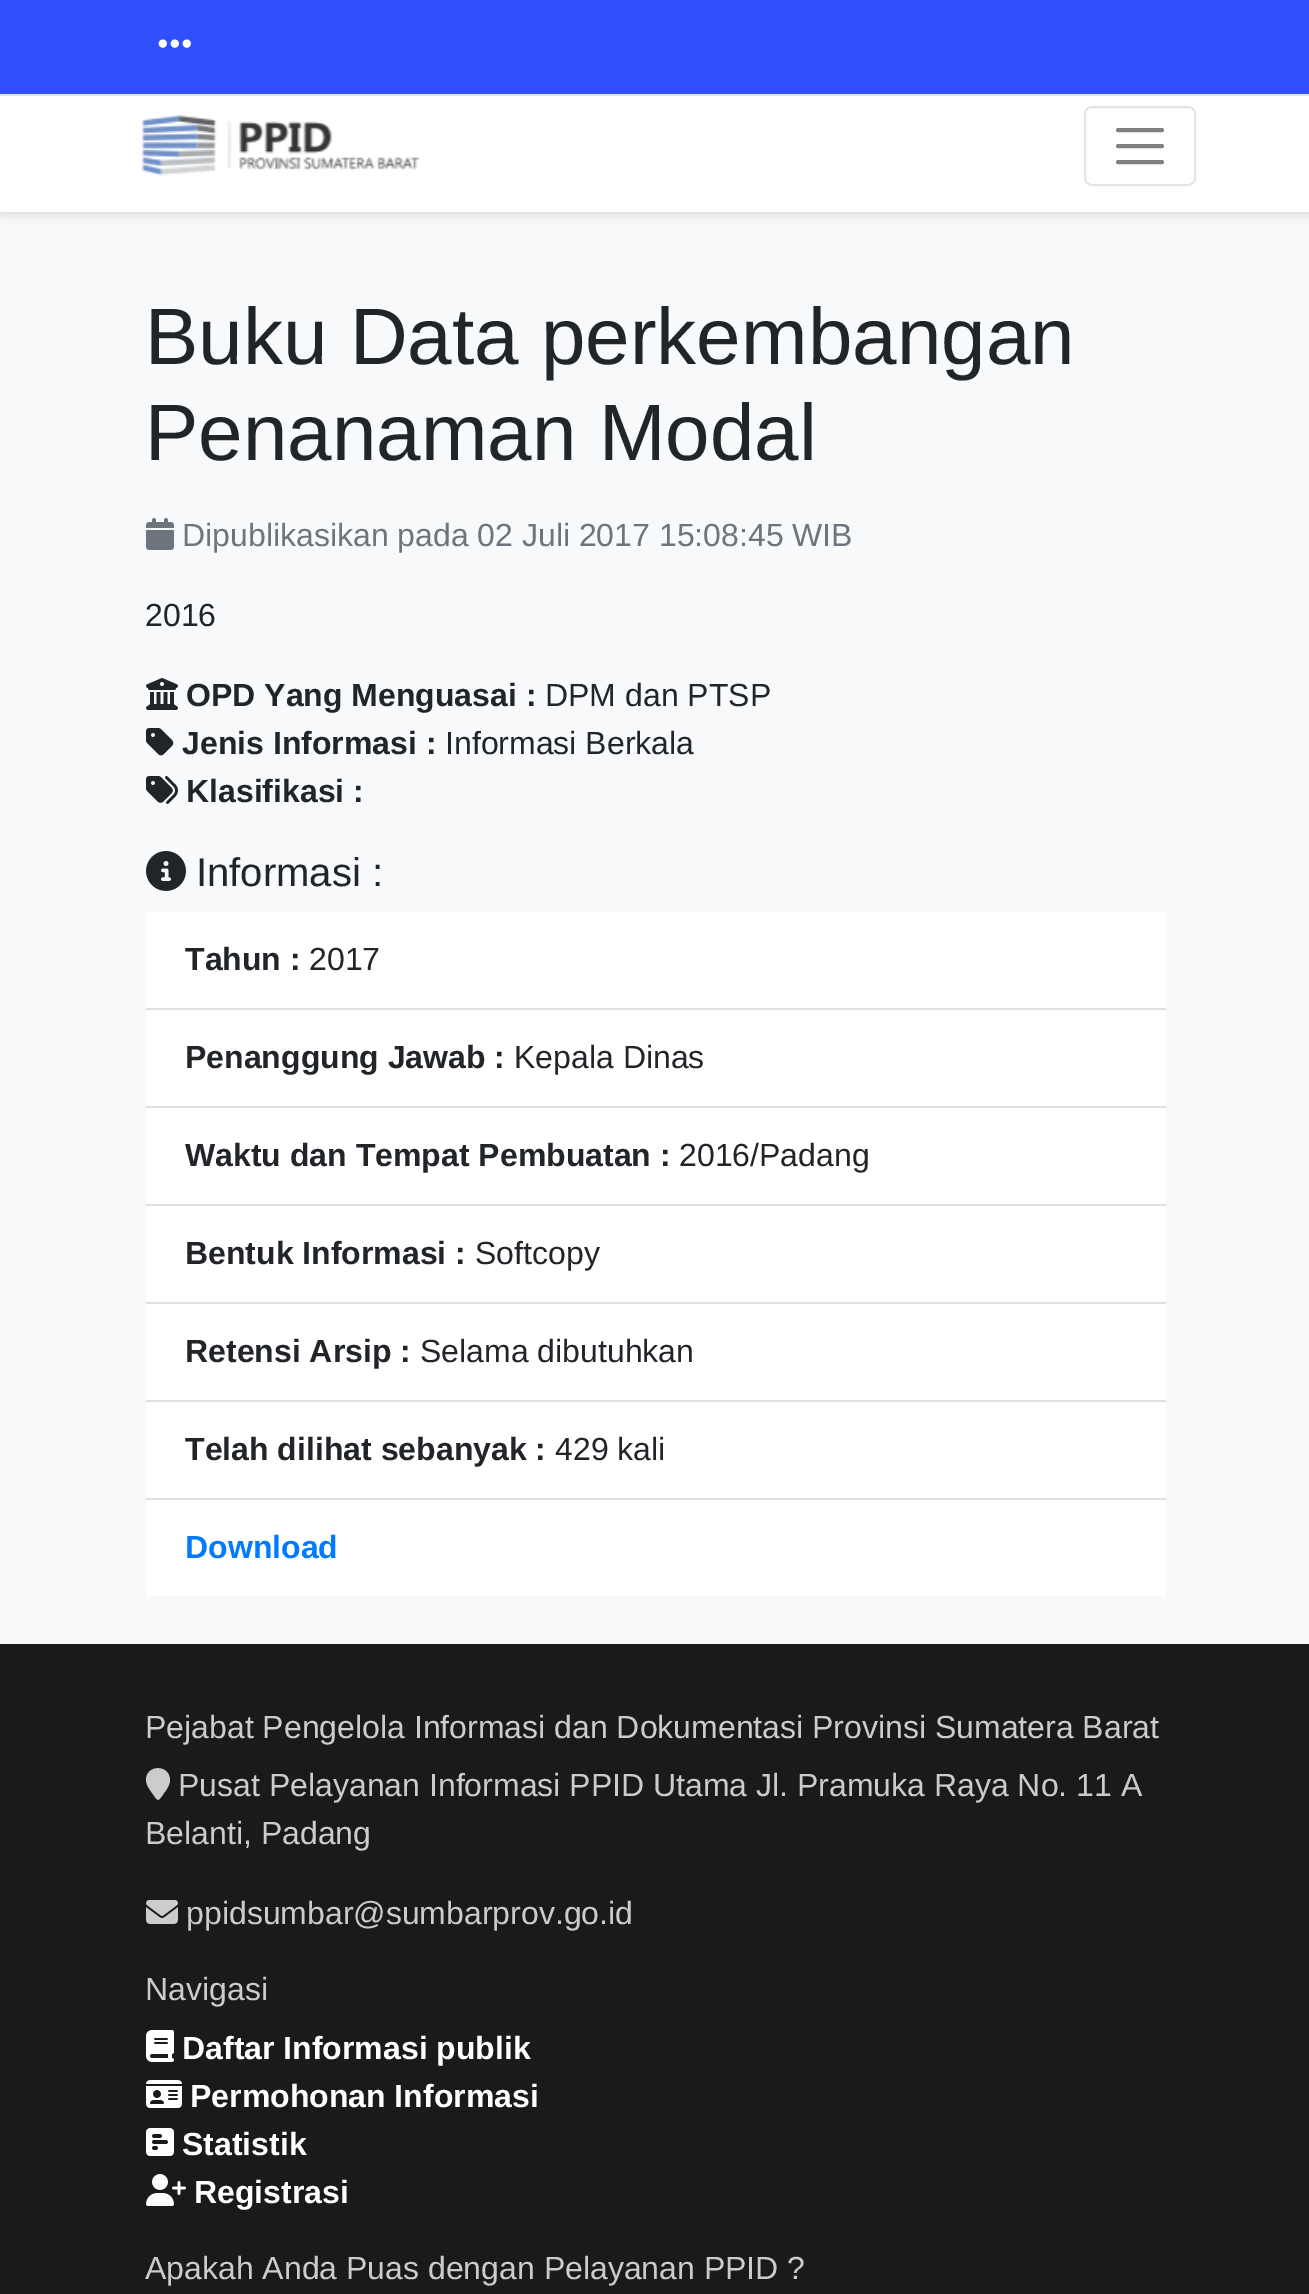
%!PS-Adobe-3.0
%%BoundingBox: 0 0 1309 2294
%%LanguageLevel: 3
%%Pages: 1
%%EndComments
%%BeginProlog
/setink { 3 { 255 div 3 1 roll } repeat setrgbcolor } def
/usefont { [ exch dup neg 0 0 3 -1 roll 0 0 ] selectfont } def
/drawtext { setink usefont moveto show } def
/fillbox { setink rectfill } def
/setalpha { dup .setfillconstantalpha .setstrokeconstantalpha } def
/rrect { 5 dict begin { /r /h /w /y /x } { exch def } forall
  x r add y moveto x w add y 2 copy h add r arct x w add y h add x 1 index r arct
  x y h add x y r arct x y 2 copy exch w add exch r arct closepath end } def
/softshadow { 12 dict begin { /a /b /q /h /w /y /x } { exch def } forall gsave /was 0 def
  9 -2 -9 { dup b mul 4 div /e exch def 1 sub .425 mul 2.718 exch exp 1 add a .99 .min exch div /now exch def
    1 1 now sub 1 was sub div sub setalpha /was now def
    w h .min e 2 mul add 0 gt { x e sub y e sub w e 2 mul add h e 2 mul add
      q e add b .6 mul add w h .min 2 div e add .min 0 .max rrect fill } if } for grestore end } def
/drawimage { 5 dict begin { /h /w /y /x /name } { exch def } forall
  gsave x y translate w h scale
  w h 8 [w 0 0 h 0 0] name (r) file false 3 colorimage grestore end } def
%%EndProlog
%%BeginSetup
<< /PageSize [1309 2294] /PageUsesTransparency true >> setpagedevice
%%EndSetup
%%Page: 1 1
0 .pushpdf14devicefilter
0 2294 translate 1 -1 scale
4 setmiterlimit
0 0 1309 2294 248 249 250 fillbox
0 0 0 setink
0 84 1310 132 0 4 0.1 softshadow
0 0 1309 94 48 79 253 fillbox
0 94 1309 2 222 226 230 fillbox
(assets/img1.rgb) 158 39 33 9 drawimage
0 96 1309 116 255 255 255 fillbox
(assets/img2.rgb) 142 115 278 61 drawimage
230 230 230 setink
2 setlinewidth
1085 107 110 78 7 rrect stroke
128 128 128 setink
4 setlinewidth
1 setlinecap
1118 130 moveto 1162 130 lineto 1118 146 moveto 1162 146 lineto 1118 162 moveto 1162 162 lineto stroke
(Buku Data perkembangan) 145 364 /LiberationSans-Regular 80 33 37 41 drawtext
(Penanaman Modal) 145 460 /LiberationSans-Regular 80 33 37 41 drawtext
(assets/img3.rgb) 146 518 28 32 drawimage
(Dipublikasikan pada 02 Juli 2017 15:08:45 WIB) 182 546 /LiberationSans-Regular 32 108 117 125 drawtext
(2016) 145 626 /LiberationSans-Regular 32 33 37 41 drawtext
(assets/img4.rgb) 146 678 32 32 drawimage
(OPD Yang Menguasai :) 186 706 /LiberationSans-Bold 32 33 37 41 drawtext
(DPM dan PTSP) 545 706 /LiberationSans-Regular 32 33 37 41 drawtext
(assets/img5.rgb) 146 728 28 28 drawimage
(Jenis Informasi :) 182 754 /LiberationSans-Bold 32 33 37 41 drawtext
(Informasi Berkala) 445 754 /LiberationSans-Regular 32 33 37 41 drawtext
(assets/img6.rgb) 146 776 32 28 drawimage
(Klasifikasi :) 186 802 /LiberationSans-Bold 32 33 37 41 drawtext
(assets/img7.rgb) 146 851 40 40 drawimage
(Informasi :) 196 886 /LiberationSans-Regular 40 33 37 41 drawtext
146 912 1020 96 255 255 255 fillbox
146 1008 1020 2 223 223 223 fillbox
(Tahun :) 185 970 /LiberationSans-Bold 32 33 37 41 drawtext
(2017) 309 970 /LiberationSans-Regular 32 33 37 41 drawtext
146 1010 1020 96 255 255 255 fillbox
146 1106 1020 2 223 223 223 fillbox
(Penanggung Jawab :) 185 1068 /LiberationSans-Bold 32 33 37 41 drawtext
(Kepala Dinas) 514 1068 /LiberationSans-Regular 32 33 37 41 drawtext
146 1108 1020 96 255 255 255 fillbox
146 1204 1020 2 223 223 223 fillbox
(Waktu dan Tempat Pembuatan :) 185 1166 /LiberationSans-Bold 32 33 37 41 drawtext
(2016/Padang) 679 1166 /LiberationSans-Regular 32 33 37 41 drawtext
146 1206 1020 96 255 255 255 fillbox
146 1302 1020 2 223 223 223 fillbox
(Bentuk Informasi :) 185 1264 /LiberationSans-Bold 32 33 37 41 drawtext
(Softcopy) 475 1264 /LiberationSans-Regular 32 33 37 41 drawtext
146 1304 1020 96 255 255 255 fillbox
146 1400 1020 2 223 223 223 fillbox
(Retensi Arsip :) 185 1362 /LiberationSans-Bold 32 33 37 41 drawtext
(Selama dibutuhkan) 420 1362 /LiberationSans-Regular 32 33 37 41 drawtext
146 1402 1020 96 255 255 255 fillbox
146 1498 1020 2 223 223 223 fillbox
(Telah dilihat sebanyak :) 185 1460 /LiberationSans-Bold 32 33 37 41 drawtext
(429 kali) 555 1460 /LiberationSans-Regular 32 33 37 41 drawtext
146 1500 1020 96 255 255 255 fillbox
(Download) 185 1558 /LiberationSans-Bold 32 0 123 255 drawtext
0 1644 1309 650 26 26 26 fillbox
(Pejabat Pengelola Informasi dan Dokumentasi Provinsi Sumatera Barat) 145 1738 /LiberationSans-Regular 32 204 204 204 drawtext
170 1780 moveto 170 1784.5 167 1789 164 1793 curveto 158 1801.5 158.5 1802.5 152.5 1793.5 curveto 150 1790 146 1784.5 146 1780 curveto 146 1764.5 169.5 1764 170 1780 curveto closepath fill
(Pusat Pelayanan Informasi PPID Utama Jl. Pramuka Raya No. 11 A) 178 1796 /LiberationSans-Regular 32 204 204 204 drawtext
(Belanti, Padang) 145 1844 /LiberationSans-Regular 32 204 204 204 drawtext
(assets/img8.rgb) 146 1900 32 24 drawimage
(ppidsumbar@sumbarprov.go.id) 186 1924 /LiberationSans-Regular 32 204 204 204 drawtext
(Navigasi) 145 2000 /LiberationSans-Regular 32 204 204 204 drawtext
(assets/img9.rgb) 146 2030 28 32 drawimage
(Daftar Informasi publik) 182 2059 /LiberationSans-Bold 32 255 255 255 drawtext
(assets/img10.rgb) 146 2080 36 28 drawimage
(Permohonan Informasi) 190 2107 /LiberationSans-Bold 32 255 255 255 drawtext
(assets/img11.rgb) 146 2128 28 28 drawimage
(Statistik) 182 2155 /LiberationSans-Bold 32 255 255 255 drawtext
(assets/img12.rgb) 146 2174 40 32 drawimage
(Registrasi) 194 2203 /LiberationSans-Bold 32 255 255 255 drawtext
(Apakah Anda Puas dengan Pelayanan PPID ?) 145 2279 /LiberationSans-Regular 32 204 204 204 drawtext
.poppdf14devicefilter showpage
%%EOF
